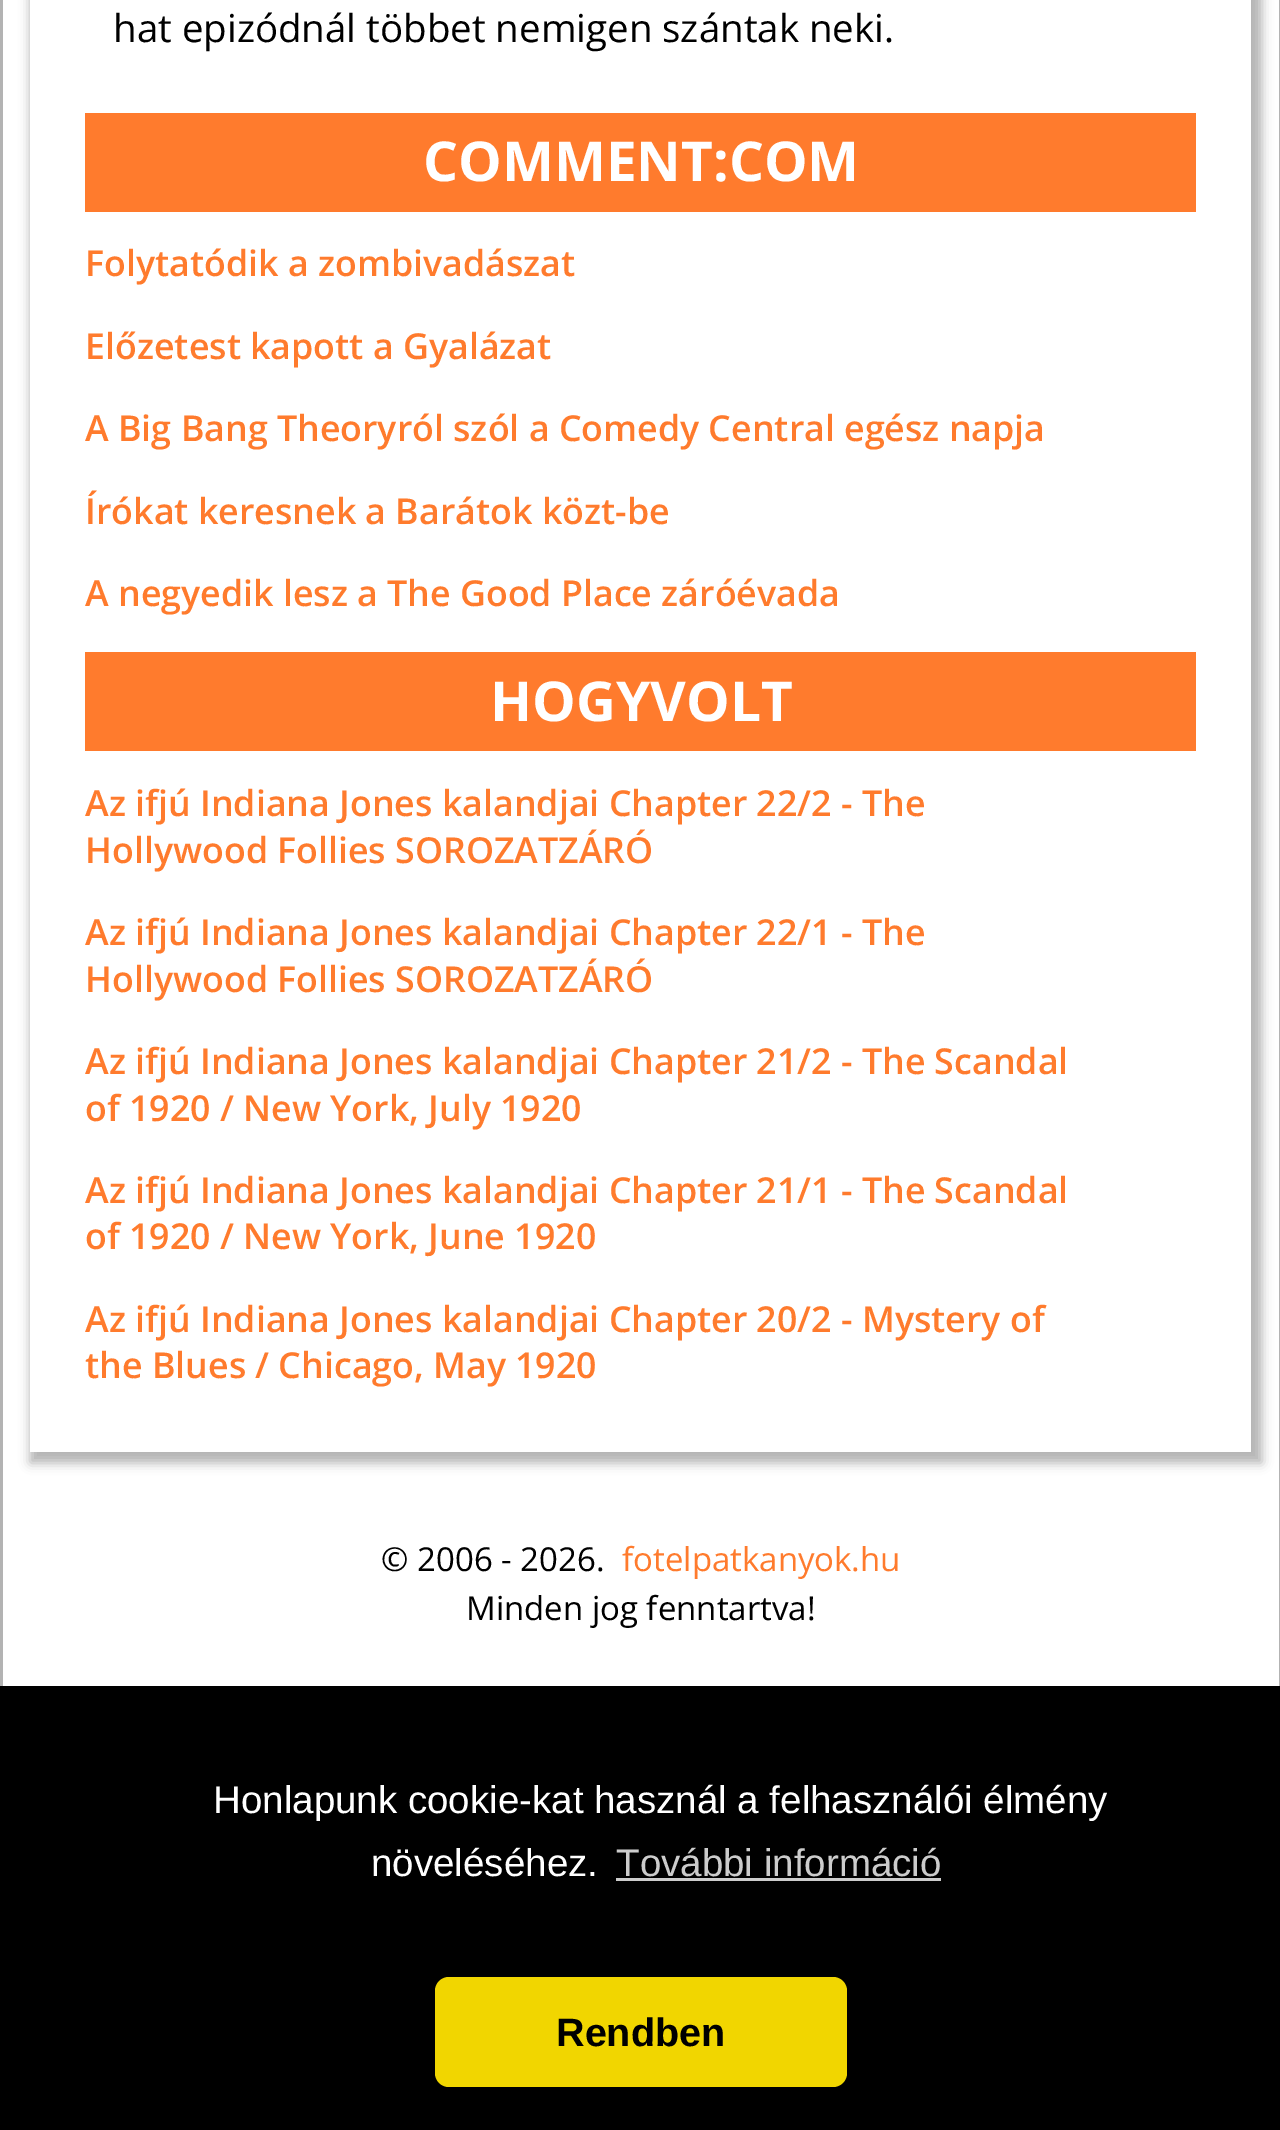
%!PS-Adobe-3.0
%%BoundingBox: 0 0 1280 2130
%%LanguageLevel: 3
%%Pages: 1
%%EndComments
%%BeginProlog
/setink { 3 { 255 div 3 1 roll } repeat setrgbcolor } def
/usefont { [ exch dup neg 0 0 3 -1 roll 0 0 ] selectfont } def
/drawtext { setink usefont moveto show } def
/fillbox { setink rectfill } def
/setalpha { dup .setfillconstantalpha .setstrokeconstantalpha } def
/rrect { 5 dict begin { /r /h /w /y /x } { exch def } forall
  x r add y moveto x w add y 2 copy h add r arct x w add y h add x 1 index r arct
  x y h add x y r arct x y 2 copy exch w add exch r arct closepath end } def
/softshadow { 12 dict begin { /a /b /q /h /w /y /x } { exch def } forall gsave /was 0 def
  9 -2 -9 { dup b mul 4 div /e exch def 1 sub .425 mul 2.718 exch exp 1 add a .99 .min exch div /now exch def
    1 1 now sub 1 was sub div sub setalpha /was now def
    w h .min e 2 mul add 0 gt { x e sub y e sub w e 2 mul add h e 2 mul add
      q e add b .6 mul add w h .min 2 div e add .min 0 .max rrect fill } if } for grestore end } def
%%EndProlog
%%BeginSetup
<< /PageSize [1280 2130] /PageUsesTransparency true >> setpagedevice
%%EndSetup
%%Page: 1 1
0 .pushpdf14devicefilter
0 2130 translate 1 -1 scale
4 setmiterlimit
0 0 1280 2130 255 255 255 fillbox
1279 0 1 1686 179 179 179 fillbox
0 0 3 1686 179 179 179 fillbox
gsave
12 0 moveto 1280 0 lineto 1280 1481 lineto 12 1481 lineto closepath 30 -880 moveto 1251 -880 lineto 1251 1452 lineto 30 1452 lineto closepath eoclip newpath
0 0 0 setink
30 -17 1232 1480 0 5.5 0.3 softshadow
grestore
(hat epizódnál többet nemigen szántak neki.) 113 42 /OpenSans-Regular 38.5 0 0 0 drawtext
85 113 1111 99 255 123 45 fillbox
(COMMENT:COM) 423 181 /OpenSans-Bold 55 255 255 255 drawtext
(Folytatódik a zombivadászat) 85 276 /OpenSans-SemiBold 35.75 255 123 45 drawtext
(Előzetest kapott a Gyalázat) 85 359 /OpenSans-SemiBold 35.75 255 123 45 drawtext
(A Big Bang Theoryról szól a Comedy Central egész napja) 85 441 /OpenSans-SemiBold 35.75 255 123 45 drawtext
(Írókat keresnek a Barátok közt-be) 85 524 /OpenSans-SemiBold 35.75 255 123 45 drawtext
(A negyedik lesz a The Good Place záróévada) 85 606 /OpenSans-SemiBold 35.75 255 123 45 drawtext
85 652 1111 99 255 123 45 fillbox
(HOGYVOLT) 490 721 /OpenSans-Bold 55 255 255 255 drawtext
(Az ifjú Indiana Jones kalandjai Chapter 22/2 - The) 85 816 /OpenSans-SemiBold 35.75 255 123 45 drawtext
(Hollywood Follies SOROZATZÁRÓ) 85 863 /OpenSans-SemiBold 35.75 255 123 45 drawtext
(Az ifjú Indiana Jones kalandjai Chapter 22/1 - The) 85 945 /OpenSans-SemiBold 35.75 255 123 45 drawtext
(Hollywood Follies SOROZATZÁRÓ) 85 992 /OpenSans-SemiBold 35.75 255 123 45 drawtext
(Az ifjú Indiana Jones kalandjai Chapter 21/2 - The Scandal) 85 1074 /OpenSans-SemiBold 35.75 255 123 45 drawtext
(of 1920 / New York, July 1920) 85 1121 /OpenSans-SemiBold 35.75 255 123 45 drawtext
(Az ifjú Indiana Jones kalandjai Chapter 21/1 - The Scandal) 85 1203 /OpenSans-SemiBold 35.75 255 123 45 drawtext
(of 1920 / New York, June 1920) 85 1249 /OpenSans-SemiBold 35.75 255 123 45 drawtext
(Az ifjú Indiana Jones kalandjai Chapter 20/2 - Mystery of) 85 1332 /OpenSans-SemiBold 35.75 255 123 45 drawtext
(the Blues / Chicago, May 1920) 85 1378 /OpenSans-SemiBold 35.75 255 123 45 drawtext
(© 2006 - 2026.) 381 1571 /OpenSans-Regular 33 0 0 0 drawtext
(fotelpatkanyok.hu) 622 1571 /OpenSans-Regular 33 255 123 45 drawtext
(Minden jog fenntartva!) 466 1620 /OpenSans-Regular 33 0 0 0 drawtext
0 1686 1280 444 0 0 0 fillbox
(Honlapunk cookie-kat használ a felhasználói élmény) 213 1813 /LiberationSans-Regular 38.5 255 255 255 drawtext
(növeléséhez.) 371 1876 /LiberationSans-Regular 38.5 255 255 255 drawtext
(További információ) 616 1876 /LiberationSans-Regular 38.5 204 204 204 drawtext
616 1878 325 3 204 204 204 fillbox
241 214 0 setink
435 1977 412 110 14 rrect fill
(Rendben) 556 2046 /LiberationSans-Bold 39.5 0 0 0 drawtext
.poppdf14devicefilter showpage
%%EOF
